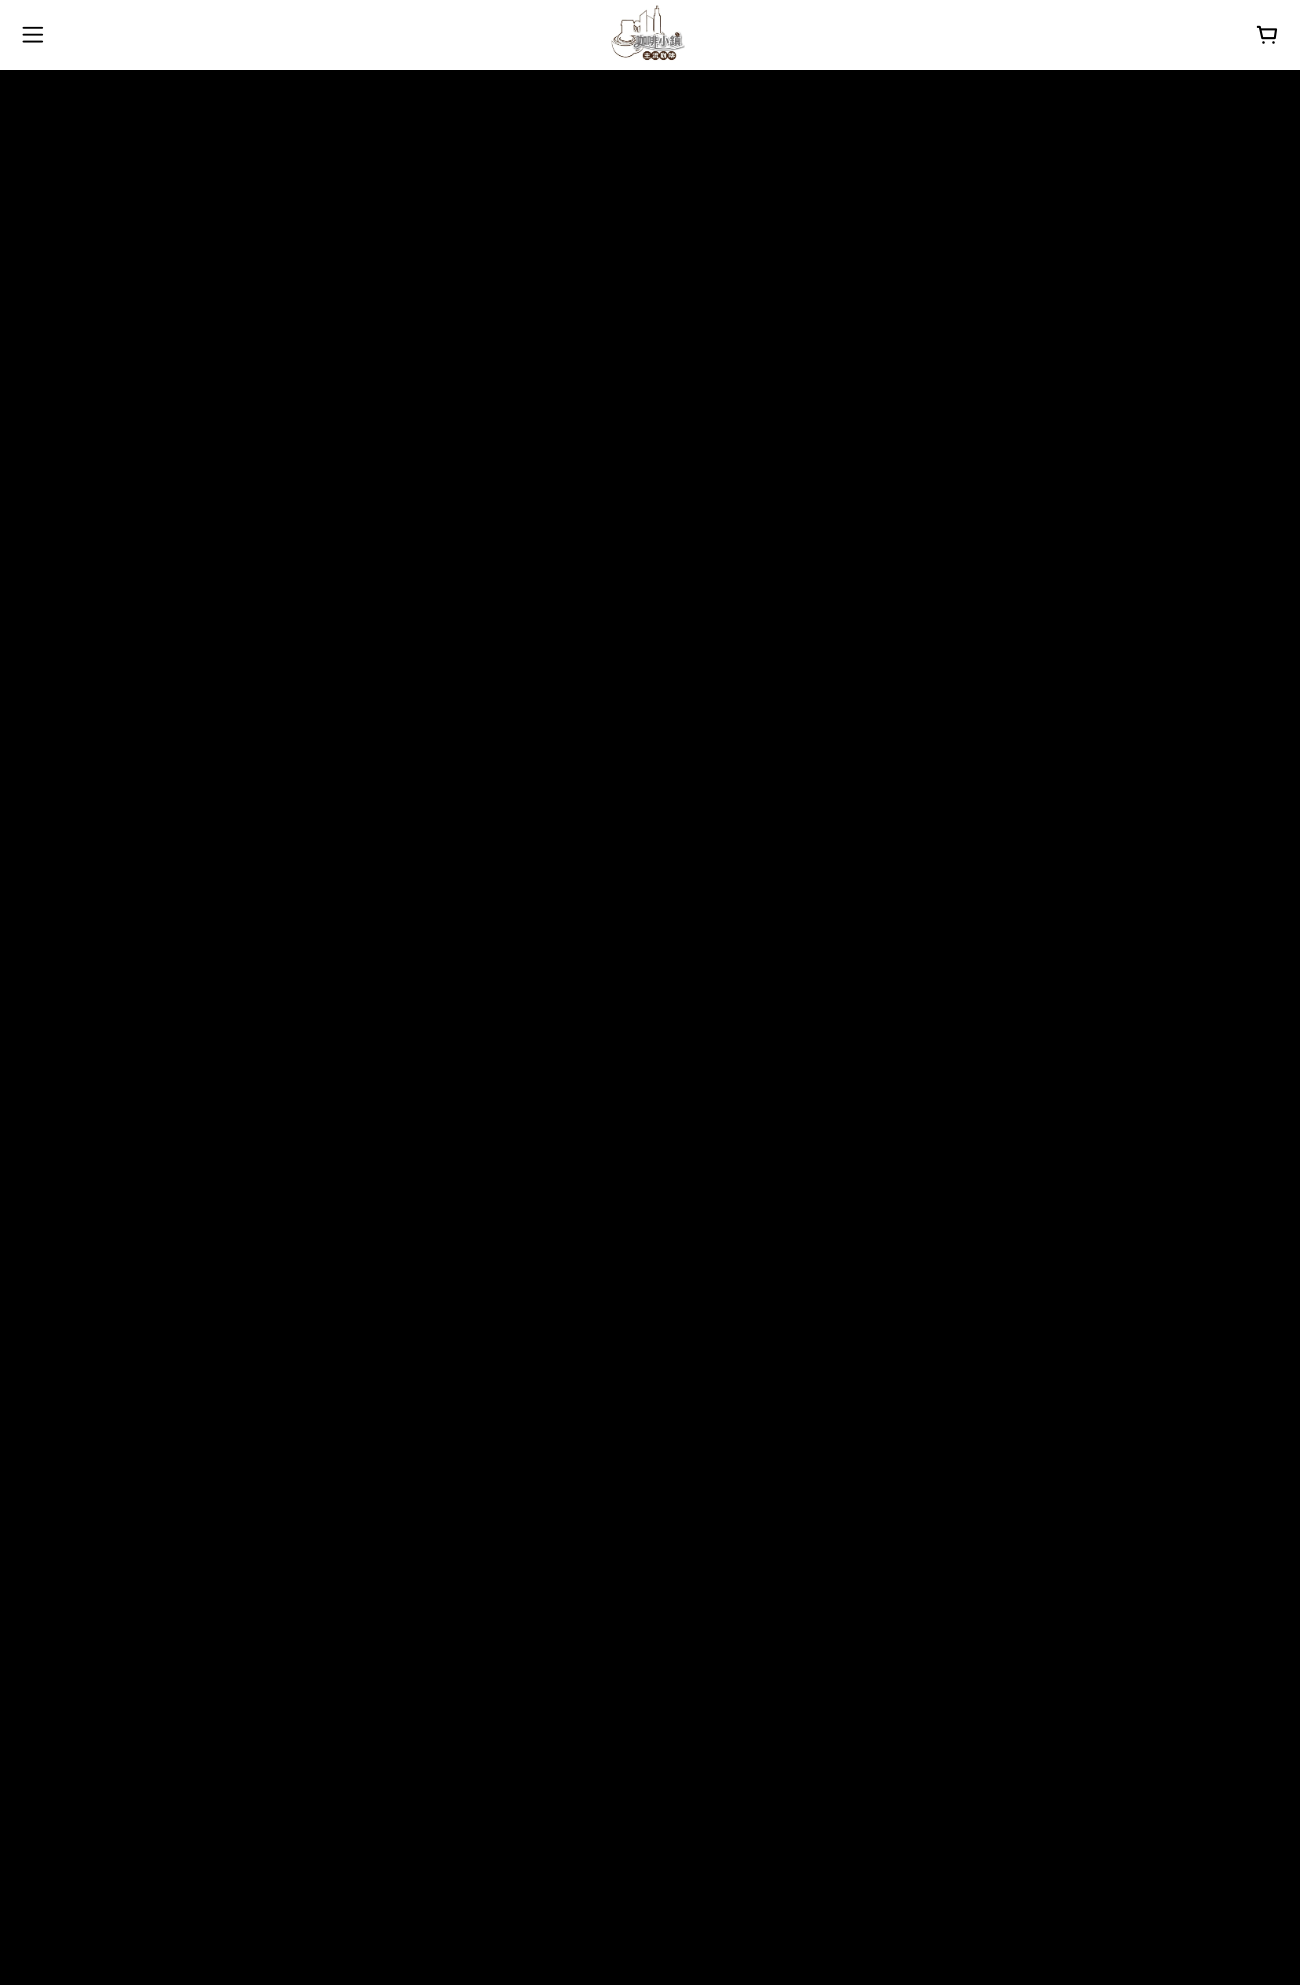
%!PS-Adobe-3.0
%%BoundingBox: 0 0 1300 1985
%%LanguageLevel: 3
%%Pages: 1
%%EndComments
%%BeginProlog
/setink { 3 { 255 div 3 1 roll } repeat setrgbcolor } def
/fillbox { setink rectfill } def
/drawimage { 5 dict begin { /h /w /y /x /name } { exch def } forall
  gsave x y translate w h scale
  w h 8 [w 0 0 h 0 0] name (r) file false 3 colorimage grestore end } def
%%EndProlog
%%BeginSetup
<< /PageSize [1300 1985] >> setpagedevice
%%EndSetup
%%Page: 1 1
0 1985 translate 1 -1 scale
4 setmiterlimit
0 0 1300 1985 0 0 0 fillbox
0 0 1300 70 255 255 255 fillbox
(assets/img1.rgb) 22 26 22 17 drawimage
(assets/img2.rgb) 611 5 74 56 drawimage
(assets/img3.rgb) 1256 25 22 19 drawimage
showpage
%%EOF
